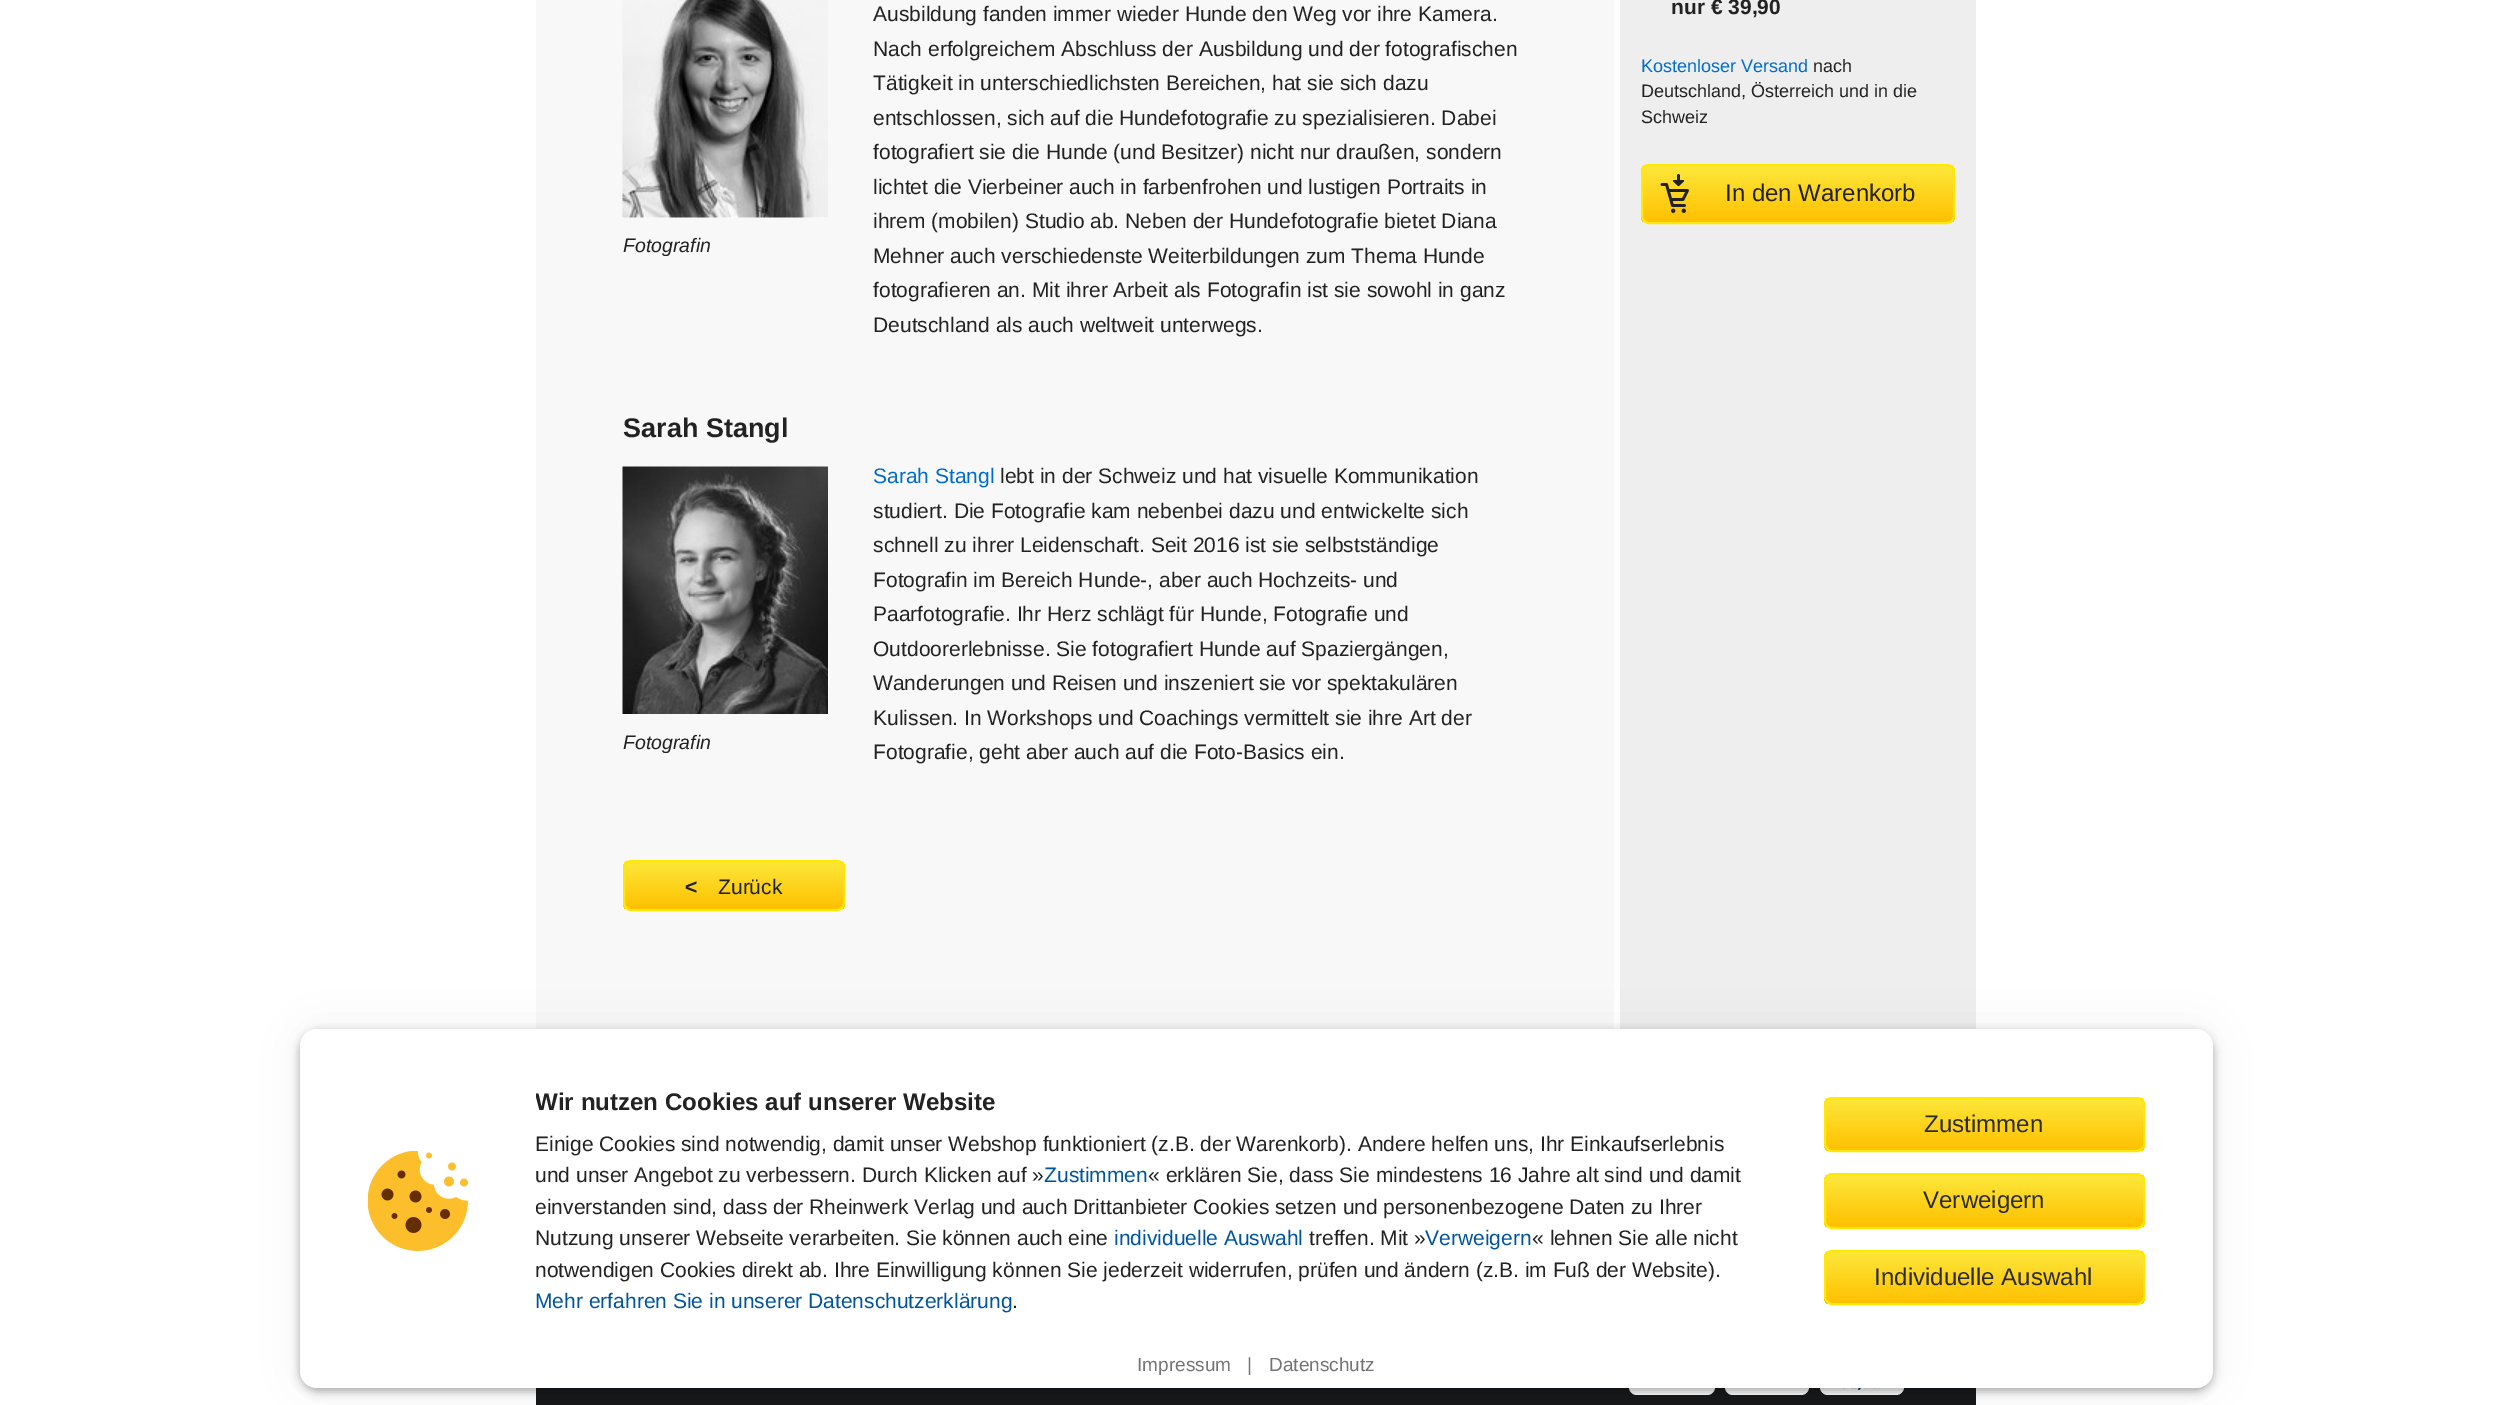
%!PS-Adobe-3.0
%%BoundingBox: 0 0 2510 1405
%%LanguageLevel: 3
%%Pages: 1
%%EndComments
%%BeginProlog
/setink { 3 { 255 div 3 1 roll } repeat setrgbcolor } def
/usefont { [ exch dup neg 0 0 3 -1 roll 0 0 ] selectfont } def
/drawtext { setink usefont moveto show } def
/fillbox { setink rectfill } def
/setalpha { dup .setfillconstantalpha .setstrokeconstantalpha } def
/rrect { 5 dict begin { /r /h /w /y /x } { exch def } forall
  x r add y moveto x w add y 2 copy h add r arct x w add y h add x 1 index r arct
  x y h add x y r arct x y 2 copy exch w add exch r arct closepath end } def
/softshadow { 12 dict begin { /a /b /q /h /w /y /x } { exch def } forall gsave /was 0 def
  9 -2 -9 { dup b mul 4 div /e exch def 1 sub .425 mul 2.718 exch exp 1 add a .99 .min exch div /now exch def
    1 1 now sub 1 was sub div sub setalpha /was now def
    w h .min e 2 mul add 0 gt { x e sub y e sub w e 2 mul add h e 2 mul add
      q e add b .6 mul add w h .min 2 div e add .min 0 .max rrect fill } if } for grestore end } def
/drawimage { 5 dict begin { /h /w /y /x /name } { exch def } forall
  gsave x y translate w h scale
  w h 8 [w 0 0 h 0 0] name (r) file false 3 colorimage grestore end } def
%%EndProlog
%%BeginSetup
<< /PageSize [2510 1405] /PageUsesTransparency true >> setpagedevice
%%EndSetup
%%Page: 1 1
0 .pushpdf14devicefilter
0 1405 translate 1 -1 scale
4 setmiterlimit
0 0 2510 1405 255 255 255 fillbox
1620 0 356 1029 238 238 238 fillbox
536 0 1078 1029 248 248 248 fillbox
623 217 205 1 255 255 255 fillbox
(assets/img1.rgb) 622 0 206 218 drawimage
(Fotografin) 623 252 /LiberationSans-Italic 19.5 34 34 34 drawtext
(Ausbildung fanden immer wieder Hunde den Weg vor ihre Kamera.) 873 21 /LiberationSans-Regular 21 34 34 34 drawtext
(Nach erfolgreichem Abschluss der Ausbildung und der fotografischen) 873 56 /LiberationSans-Regular 21 34 34 34 drawtext
(Tätigkeit in unterschiedlichsten Bereichen, hat sie sich dazu) 873 90 /LiberationSans-Regular 21 34 34 34 drawtext
(entschlossen, sich auf die Hundefotografie zu spezialisieren. Dabei) 873 125 /LiberationSans-Regular 21 34 34 34 drawtext
(fotografiert sie die Hunde \(und Besitzer\) nicht nur draußen, sondern) 873 159 /LiberationSans-Regular 21 34 34 34 drawtext
(lichtet die Vierbeiner auch in farbenfrohen und lustigen Portraits in) 873 194 /LiberationSans-Regular 21 34 34 34 drawtext
(ihrem \(mobilen\) Studio ab. Neben der Hundefotografie bietet Diana) 873 228 /LiberationSans-Regular 21 34 34 34 drawtext
(Mehner auch verschiedenste Weiterbildungen zum Thema Hunde) 873 263 /LiberationSans-Regular 21 34 34 34 drawtext
(fotografieren an. Mit ihrer Arbeit als Fotografin ist sie sowohl in ganz) 873 297 /LiberationSans-Regular 21 34 34 34 drawtext
(Deutschland als auch weltweit unterwegs.) 873 332 /LiberationSans-Regular 21 34 34 34 drawtext
(Sarah Stangl) 623 437 /LiberationSans-Bold 27 34 34 34 drawtext
(assets/img2.rgb) 622 466 206 248 drawimage
(Fotografin) 623 749 /LiberationSans-Italic 19.5 34 34 34 drawtext
(Sarah Stangl) 873 483 /LiberationSans-Regular 21 0 108 202 drawtext
(lebt in der Schweiz und hat visuelle Kommunikation) 1000 483 /LiberationSans-Regular 21 34 34 34 drawtext
(studiert. Die Fotografie kam nebenbei dazu und entwickelte sich) 873 518 /LiberationSans-Regular 21 34 34 34 drawtext
(schnell zu ihrer Leidenschaft. Seit 2016 ist sie selbstständige) 873 552 /LiberationSans-Regular 21 34 34 34 drawtext
(Fotografin im Bereich Hunde-, aber auch Hochzeits- und) 873 587 /LiberationSans-Regular 21 34 34 34 drawtext
(Paarfotografie. Ihr Herz schlägt für Hunde, Fotografie und) 873 621 /LiberationSans-Regular 21 34 34 34 drawtext
(Outdoorerlebnisse. Sie fotografiert Hunde auf Spaziergängen,) 873 656 /LiberationSans-Regular 21 34 34 34 drawtext
(Wanderungen und Reisen und inszeniert sie vor spektakulären) 873 690 /LiberationSans-Regular 21 34 34 34 drawtext
(Kulissen. In Workshops und Coachings vermittelt sie ihre Art der) 873 725 /LiberationSans-Regular 21 34 34 34 drawtext
(Fotografie, geht aber auch auf die Foto-Basics ein.) 873 759 /LiberationSans-Regular 21 34 34 34 drawtext
gsave
623 860 222 51 8 rrect clip newpath
gsave 623 861 moveto 845 861 lineto 845 909 lineto 623 909 lineto closepath clip newpath
<< /ShadingType 2 /ColorSpace /DeviceRGB /Coords [734 861 734 909] /Extend [true true] /Function << /FunctionType 2 /Domain [0 1] /C0 [0.992 0.91 0.231] /C1 [1 0.753 0] /N 1 >> >> shfill grestore
grestore
255 233 0 setink
2 setlinewidth
624 861 220 49 7 rrect stroke
(<) 685 894 /LiberationSans-Bold 21 34 34 34 drawtext
(Zurück) 718 894 /LiberationSans-Regular 21 34 34 34 drawtext
(nur € 39,90) 1671 14 /LiberationSans-Bold 21 34 34 34 drawtext
(Kostenloser Versand) 1641 72 /LiberationSans-Regular 18 0 108 202 drawtext
(nach) 1813 72 /LiberationSans-Regular 18 34 34 34 drawtext
(Deutschland, Österreich und in die) 1641 97 /LiberationSans-Regular 18 34 34 34 drawtext
(Schweiz) 1641 123 /LiberationSans-Regular 18 34 34 34 drawtext
gsave
1641 164 314 60 8 rrect clip newpath
gsave 1641 165 moveto 1955 165 lineto 1955 222 lineto 1641 222 lineto closepath clip newpath
<< /ShadingType 2 /ColorSpace /DeviceRGB /Coords [1798 165 1798 222] /Extend [true true] /Function << /FunctionType 2 /Domain [0 1] /C0 [0.992 0.91 0.231] /C1 [1 0.753 0] /N 1 >> >> shfill grestore
grestore
255 233 0 setink
1642 165 312 58 7 rrect stroke
(assets/img3.rgb) 1660 174 29 39 drawimage
(In den Warenkorb) 1725 201 /LiberationSans-Regular 24 34 34 34 drawtext
536 1388 1440 17 21 23 25 fillbox
255 255 255 setink
1629 1347 86 48 8 rrect fill
1725 1347 84 48 8 rrect fill
1820 1347 84 48 8 rrect fill
(assets/img5.rgb) 1843 1388 38 2 drawimage
0 0 0 setink
300 1029 1913 359 17 22.5 0.05 softshadow
300 1034 1913 358 17 4.5 0.25 softshadow
300 1029 1913 359 17 4.5 0.06 softshadow
255 255 255 setink
300 1029 1913 359 17 rrect fill
(assets/img4.rgb) 368 1151 100 100 drawimage
gsave
536 1083 1221 234 rectclip
(Wir nutzen Cookies auf unserer Website) 535 1110 /LiberationSans-Bold 24.1 34 34 34 drawtext
grestore
(Einige Cookies sind notwendig, damit unser Webshop funktioniert \(z.B. der Warenkorb\). Andere helfen uns, Ihr Einkaufserlebnis) 535 1151 /LiberationSans-Regular 21 34 34 34 drawtext
(und unser Angebot zu verbessern. Durch Klicken auf ») 535 1182 /LiberationSans-Regular 21 34 34 34 drawtext
(Zustimmen) 1044 1182 /LiberationSans-Regular 21 0 84 157 drawtext
(« erklären Sie, dass Sie mindestens 16 Jahre alt sind und damit) 1148 1182 /LiberationSans-Regular 21 34 34 34 drawtext
gsave
536 1083 1221 234 rectclip
(einverstanden sind, dass der Rheinwerk Verlag und auch Drittanbieter Cookies setzen und personenbezogene Daten zu Ihrer) 535 1214 /LiberationSans-Regular 21 34 34 34 drawtext
grestore
(Nutzung unserer Webseite verarbeiten. Sie können auch eine) 535 1245 /LiberationSans-Regular 21 34 34 34 drawtext
(individuelle Auswahl) 1114 1245 /LiberationSans-Regular 21 0 84 157 drawtext
(treffen. Mit ») 1309 1245 /LiberationSans-Regular 21 34 34 34 drawtext
(Verweigern) 1425 1245 /LiberationSans-Regular 21 0 84 157 drawtext
(« lehnen Sie alle nicht) 1532 1245 /LiberationSans-Regular 21 34 34 34 drawtext
(notwendigen Cookies direkt ab. Ihre Einwilligung können Sie jederzeit widerrufen, prüfen und ändern \(z.B. im Fuß der Website\).) 535 1277 /LiberationSans-Regular 21 34 34 34 drawtext
(Mehr erfahren Sie in unserer Datenschutzerklärung) 535 1308 /LiberationSans-Regular 21 0 84 157 drawtext
(.) 1012 1308 /LiberationSans-Regular 21 34 34 34 drawtext
gsave
1824 1097 321 55 8 rrect clip newpath
gsave 1824 1098 moveto 2145 1098 lineto 2145 1151 lineto 1824 1151 lineto closepath clip newpath
<< /ShadingType 2 /ColorSpace /DeviceRGB /Coords [1985 1098 1985 1151] /Extend [true true] /Function << /FunctionType 2 /Domain [0 1] /C0 [0.992 0.91 0.231] /C1 [1 0.753 0] /N 1 >> >> shfill grestore
grestore
255 233 0 setink
1825 1098 319 53 7 rrect stroke
(Zustimmen) 1924 1132 /LiberationSans-Regular 24.1 44 44 44 drawtext
gsave
1824 1173 321 56 8 rrect clip newpath
gsave 1824 1175 moveto 2145 1175 lineto 2145 1227 lineto 1824 1227 lineto closepath clip newpath
<< /ShadingType 2 /ColorSpace /DeviceRGB /Coords [1985 1175 1985 1227] /Extend [true true] /Function << /FunctionType 2 /Domain [0 1] /C0 [0.992 0.91 0.231] /C1 [1 0.753 0] /N 1 >> >> shfill grestore
grestore
255 233 0 setink
1825 1174 319 54 7 rrect stroke
(Verweigern) 1923 1208 /LiberationSans-Regular 24.1 44 44 44 drawtext
gsave
1824 1250 321 55 8 rrect clip newpath
gsave 1824 1251 moveto 2145 1251 lineto 2145 1304 lineto 1824 1304 lineto closepath clip newpath
<< /ShadingType 2 /ColorSpace /DeviceRGB /Coords [1985 1251 1985 1304] /Extend [true true] /Function << /FunctionType 2 /Domain [0 1] /C0 [0.992 0.91 0.231] /C1 [1 0.753 0] /N 1 >> >> shfill grestore
grestore
255 233 0 setink
1825 1251 319 53 7 rrect stroke
(Individuelle Auswahl) 1874 1285 /LiberationSans-Regular 24.1 44 44 44 drawtext
(Impressum) 1137 1371 /LiberationSans-Regular 19 116 116 116 drawtext
(|) 1247 1371 /LiberationSans-Regular 19 116 116 116 drawtext
(Datenschutz) 1269 1371 /LiberationSans-Regular 19 116 116 116 drawtext
.poppdf14devicefilter showpage
%%EOF
